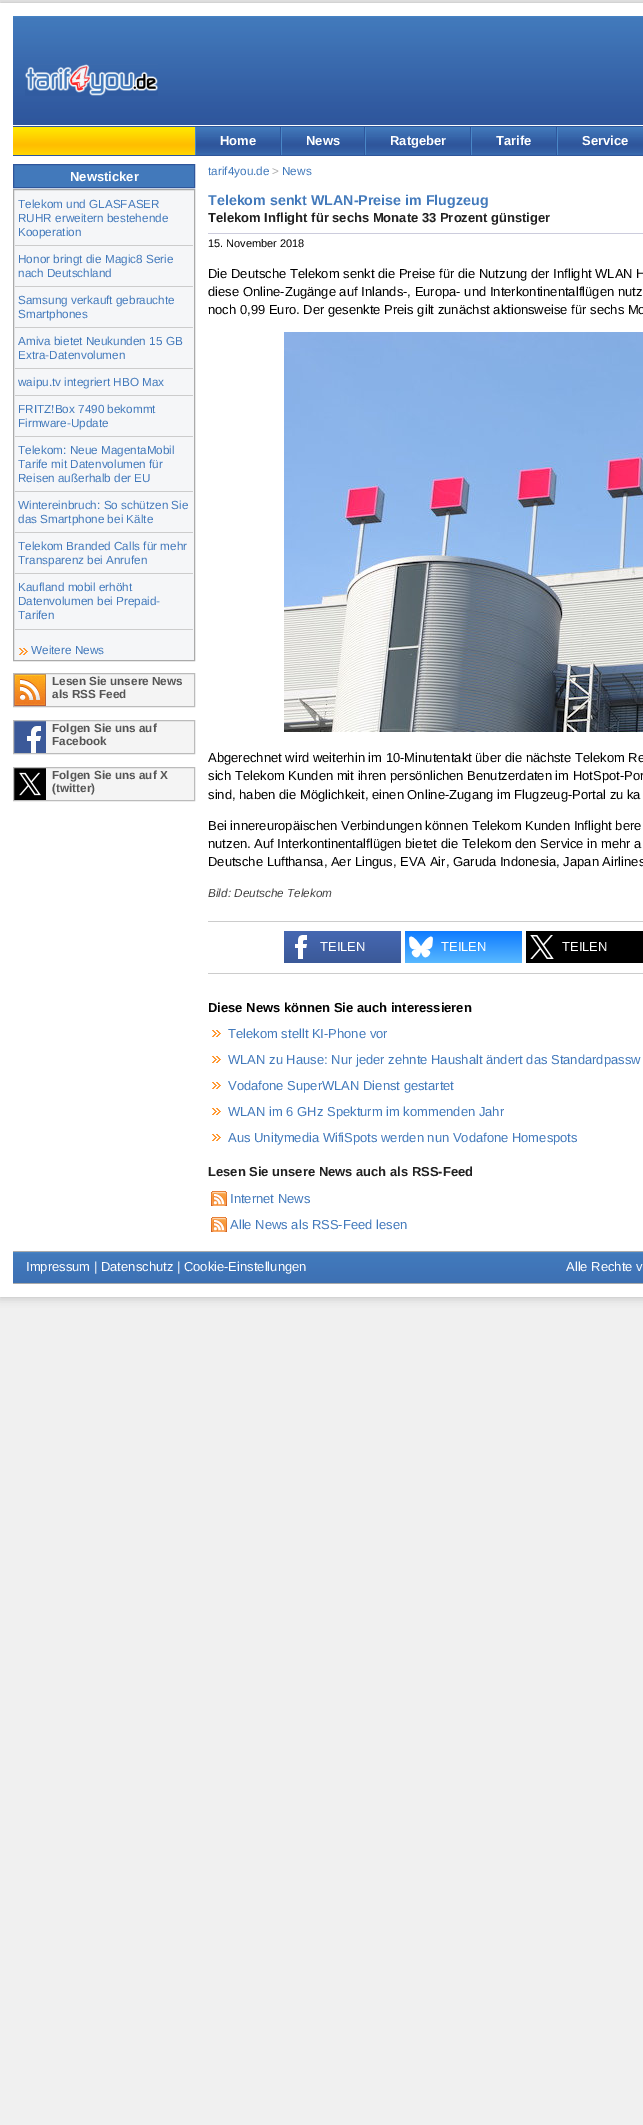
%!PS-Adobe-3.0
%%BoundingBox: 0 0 643 2125
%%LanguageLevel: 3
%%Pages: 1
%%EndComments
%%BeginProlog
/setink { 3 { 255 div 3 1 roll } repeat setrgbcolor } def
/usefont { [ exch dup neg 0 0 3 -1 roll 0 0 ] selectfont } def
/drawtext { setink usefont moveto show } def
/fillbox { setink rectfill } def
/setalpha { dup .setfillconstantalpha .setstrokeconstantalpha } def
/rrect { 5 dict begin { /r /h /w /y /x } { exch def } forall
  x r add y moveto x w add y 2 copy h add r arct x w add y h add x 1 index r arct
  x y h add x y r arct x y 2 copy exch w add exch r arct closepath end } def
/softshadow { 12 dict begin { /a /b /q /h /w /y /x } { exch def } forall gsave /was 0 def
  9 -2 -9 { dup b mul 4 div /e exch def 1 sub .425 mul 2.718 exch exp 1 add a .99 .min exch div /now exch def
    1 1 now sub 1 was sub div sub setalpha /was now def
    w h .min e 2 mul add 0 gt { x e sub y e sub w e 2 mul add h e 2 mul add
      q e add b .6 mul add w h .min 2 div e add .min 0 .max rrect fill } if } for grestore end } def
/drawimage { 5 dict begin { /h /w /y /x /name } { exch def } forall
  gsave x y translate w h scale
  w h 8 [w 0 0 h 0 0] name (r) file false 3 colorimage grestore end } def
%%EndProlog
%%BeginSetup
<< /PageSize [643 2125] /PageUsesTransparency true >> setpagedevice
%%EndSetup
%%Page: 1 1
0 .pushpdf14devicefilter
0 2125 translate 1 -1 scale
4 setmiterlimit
0 0 643 2125 240 240 240 fillbox
125 125 125 setink
0 3 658 1294 0 5 0.5 softshadow
0 3 643 1294 255 255 255 fillbox
(assets/img1.rgb) 13 16 630 109 drawimage
(assets/img2.rgb) 25 64 133 32 drawimage
(assets/img3.rgb) 13 127 182 28 drawimage
13 126 630 1 47 86 155 fillbox
13 155 630 1 47 86 155 fillbox
(assets/img4.rgb) 196 127 84 28 drawimage
280 127 1 28 47 86 155 fillbox
195 127 1 28 73 135 199 fillbox
(Home) 220 145 /LiberationSans-Bold 13 255 255 255 drawtext
(assets/img5.rgb) 282 127 82 28 drawimage
364 127 1 28 47 86 155 fillbox
281 127 1 28 73 135 199 fillbox
(News) 306 145 /LiberationSans-Bold 13 255 255 255 drawtext
(assets/img6.rgb) 366 127 104 28 drawimage
470 127 1 28 47 86 155 fillbox
365 127 1 28 73 135 199 fillbox
(Ratgeber) 390 145 /LiberationSans-Bold 13 255 255 255 drawtext
(assets/img4.rgb) 472 127 84 28 drawimage
556 127 1 28 47 86 155 fillbox
471 127 1 28 73 135 199 fillbox
(Tarife) 496 145 /LiberationSans-Bold 13 255 255 255 drawtext
(assets/img7.rgb) 558 127 85 28 drawimage
557 127 1 28 73 135 199 fillbox
(Service) 582 145 /LiberationSans-Bold 13 255 255 255 drawtext
66 121 187 setink
13.5 164.5 moveto 194.5 164.5 lineto 194.5 187.5 lineto 13.5 187.5 lineto closepath gsave fill grestore
47 86 155 setink
stroke
(Newsticker) 70 181 /LiberationSans-Bold 13 255 255 255 drawtext
245 246 248 setink
13.5 189.5 moveto 194.5 189.5 lineto 194.5 660.5 lineto 13.5 660.5 lineto closepath gsave fill grestore
170 170 170 setink
stroke
15 245 178 1 204 204 204 fillbox
(Telekom und GLASFASER) 18 208 /LiberationSans-Regular 11.75 66 121 187 drawtext
(RUHR erweitern bestehende) 18 222 /LiberationSans-Regular 11.75 66 121 187 drawtext
(Kooperation) 18 236 /LiberationSans-Regular 11.75 66 121 187 drawtext
15 286 178 1 204 204 204 fillbox
(Honor bringt die Magic8 Serie) 18 263 /LiberationSans-Regular 11.75 66 121 187 drawtext
(nach Deutschland) 18 277 /LiberationSans-Regular 11.75 66 121 187 drawtext
15 327 178 1 204 204 204 fillbox
(Samsung verkauft gebrauchte) 18 304 /LiberationSans-Regular 11.75 66 121 187 drawtext
(Smartphones) 18 318 /LiberationSans-Regular 11.75 66 121 187 drawtext
15 368 178 1 204 204 204 fillbox
(Amiva bietet Neukunden 15 GB) 18 345 /LiberationSans-Regular 11.75 66 121 187 drawtext
(Extra-Datenvolumen) 18 359 /LiberationSans-Regular 11.75 66 121 187 drawtext
15 395 178 1 204 204 204 fillbox
(waipu.tv integriert HBO Max) 18 386 /LiberationSans-Regular 11.75 66 121 187 drawtext
15 436 178 1 204 204 204 fillbox
(FRITZ!Box 7490 bekommt) 18 413 /LiberationSans-Regular 11.75 66 121 187 drawtext
(Firmware-Update) 18 427 /LiberationSans-Regular 11.75 66 121 187 drawtext
15 491 178 1 204 204 204 fillbox
(Telekom: Neue MagentaMobil) 18 454 /LiberationSans-Regular 11.75 66 121 187 drawtext
(Tarife mit Datenvolumen für) 18 468 /LiberationSans-Regular 11.75 66 121 187 drawtext
(Reisen außerhalb der EU) 18 482 /LiberationSans-Regular 11.75 66 121 187 drawtext
15 532 178 1 204 204 204 fillbox
(Wintereinbruch: So schützen Sie) 18 509 /LiberationSans-Regular 11.75 66 121 187 drawtext
(das Smartphone bei Kälte) 18 523 /LiberationSans-Regular 11.75 66 121 187 drawtext
15 573 178 1 204 204 204 fillbox
(Telekom Branded Calls für mehr) 18 550 /LiberationSans-Regular 11.75 66 121 187 drawtext
(Transparenz bei Anrufen) 18 564 /LiberationSans-Regular 11.75 66 121 187 drawtext
15 629 178 1 204 204 204 fillbox
(Kaufland mobil erhöht) 18 591 /LiberationSans-Regular 11.75 66 121 187 drawtext
(Datenvolumen bei Prepaid-) 18 605 /LiberationSans-Regular 11.75 66 121 187 drawtext
(Tarifen) 18 619 /LiberationSans-Regular 11.75 66 121 187 drawtext
(assets/img8.rgb) 19 648 9 7 drawimage
(Weitere News) 31 654 /LiberationSans-Regular 11.75 66 121 187 drawtext
14 674 180 32 244 244 244 fillbox
(assets/img9.rgb) 14 674 32 32 drawimage
187 187 187 setink
13.5 673.5 181 33 rectstroke
(Lesen Sie unsere News) 52 685 /LiberationSans-Bold 11.75 85 85 85 drawtext
(als RSS Feed) 52 698 /LiberationSans-Bold 11.75 85 85 85 drawtext
46 721 148 32 244 244 244 fillbox
(assets/img10.rgb) 14 721 32 32 drawimage
187 187 187 setink
13.5 720.5 181 33 rectstroke
(Folgen Sie uns auf) 52 732 /LiberationSans-Bold 11.75 85 85 85 drawtext
(Facebook) 52 745 /LiberationSans-Bold 11.75 85 85 85 drawtext
46 768 148 32 244 244 244 fillbox
(assets/img11.rgb) 14 768 32 32 drawimage
187 187 187 setink
13.5 767.5 181 33 rectstroke
(Folgen Sie uns auf X) 52 779 /LiberationSans-Bold 11.75 85 85 85 drawtext
(\(twitter\)) 52 792 /LiberationSans-Bold 11.75 85 85 85 drawtext
(tarif4you.de) 208 175 /LiberationSans-Regular 11.75 66 121 187 drawtext
(>) 272 175 /LiberationSans-Regular 11.75 170 170 170 drawtext
(News) 282 175 /LiberationSans-Regular 11.75 66 121 187 drawtext
(Telekom senkt WLAN-Preise im Flugzeug) 208 205 /LiberationSans-Bold 14.25 66 121 187 drawtext
(Telekom Inflight für sechs Monate 33 Prozent günstiger) 208 222 /LiberationSans-Bold 13 32 32 32 drawtext
208 233 435 1 204 204 221 fillbox
(15. November 2018) 208 247 /LiberationSans-Regular 11 0 0 0 drawtext
(Die Deutsche Telekom senkt die Preise für die Nutzung der Inflight WLAN H) 208 278 /LiberationSans-Regular 13 0 0 0 drawtext
(diese Online-Zugänge auf Inlands-, Europa- und Interkontinentalflügen nutz) 208 296 /LiberationSans-Regular 13 0 0 0 drawtext
(noch 0,99 Euro. Der gesenkte Preis gilt zunächst aktionsweise für sechs Mo) 208 314 /LiberationSans-Regular 13 0 0 0 drawtext
(assets/img12.rgb) 284 332 359 400 drawimage
(Abgerechnet wird weiterhin im 10-Minutentakt über die nächste Telekom Re) 208 762 /LiberationSans-Regular 13 0 0 0 drawtext
(sich Telekom Kunden mit ihren persönlichen Benutzerdaten im HotSpot-Por) 208 780 /LiberationSans-Regular 13 0 0 0 drawtext
(sind, haben die Möglichkeit, einen Online-Zugang im Flugzeug-Portal zu ka) 208 799 /LiberationSans-Regular 13 0 0 0 drawtext
(Bei innereuropäischen Verbindungen können Telekom Kunden Inflight bere) 208 830 /LiberationSans-Regular 13 0 0 0 drawtext
(nutzen. Auf Interkontinentalflügen bietet die Telekom den Service in mehr a) 208 848 /LiberationSans-Regular 13 0 0 0 drawtext
(Deutsche Lufthansa, Aer Lingus, EVA Air, Garuda Indonesia, Japan Airlines) 208 866 /LiberationSans-Regular 13 0 0 0 drawtext
(Bild: Deutsche Telekom) 208 897 /LiberationSans-Italic 11.75 68 68 68 drawtext
208 921 435 1 204 204 204 fillbox
208 973 435 1 204 204 204 fillbox
gsave 284 931 moveto 401 931 lineto 401 963 lineto 284 963 lineto closepath clip newpath
<< /ShadingType 2 /ColorSpace /DeviceRGB /Coords [343 931 343 963] /Extend [true true] /Function << /FunctionType 2 /Domain [0 1] /C0 [0.275 0.408 0.698] /C1 [0.231 0.349 0.596] /N 1 >> >> shfill grestore
(assets/img13.rgb) 295 935 12 24 drawimage
(TEILEN) 320 951 /LiberationSans-Regular 13 255 255 255 drawtext
gsave 405 931 moveto 522 931 lineto 522 963 lineto 405 963 lineto closepath clip newpath
<< /ShadingType 2 /ColorSpace /DeviceRGB /Coords [464 931 464 963] /Extend [true true] /Function << /FunctionType 2 /Domain [0 1] /C0 [0.055 0.482 1] /C1 [0.345 0.722 1] /N 1 >> >> shfill grestore
(assets/img14.rgb) 409 936 24 22 drawimage
(TEILEN) 441 951 /LiberationSans-Regular 13 255 255 255 drawtext
526 931 117 32 0 0 0 fillbox
(assets/img15.rgb) 530 935 24 24 drawimage
(TEILEN) 562 951 /LiberationSans-Regular 13 255 255 255 drawtext
(Diese News können Sie auch interessieren) 208 1012 /LiberationSans-Bold 13 0 0 0 drawtext
(assets/img16.rgb) 212 1030 9 7 drawimage
(Telekom stellt KI-Phone vor) 228 1038 /LiberationSans-Regular 13 66 121 187 drawtext
(assets/img16.rgb) 212 1056 9 7 drawimage
(WLAN zu Hause: Nur jeder zehnte Haushalt ändert das Standardpassw) 228 1064 /LiberationSans-Regular 13 66 121 187 drawtext
(assets/img16.rgb) 212 1082 9 7 drawimage
(Vodafone SuperWLAN Dienst gestartet) 228 1090 /LiberationSans-Regular 13 66 121 187 drawtext
(assets/img16.rgb) 212 1108 9 7 drawimage
(WLAN im 6 GHz Spekturm im kommenden Jahr) 228 1116 /LiberationSans-Regular 13 66 121 187 drawtext
(assets/img16.rgb) 212 1134 9 7 drawimage
(Aus Unitymedia WifiSpots werden nun Vodafone Homespots) 228 1142 /LiberationSans-Regular 13 66 121 187 drawtext
(Lesen Sie unsere News auch als RSS-Feed) 208 1176 /LiberationSans-Bold 13 32 32 32 drawtext
(assets/img17.rgb) 211 1191 16 15 drawimage
(Internet News) 230 1203 /LiberationSans-Regular 13 66 121 187 drawtext
(assets/img17.rgb) 211 1217 16 15 drawimage
(Alle News als RSS-Feed lesen) 230 1229 /LiberationSans-Regular 13 66 121 187 drawtext
(assets/img18.rgb) 13 1252 630 31 drawimage
13 1251 630 1 170 170 170 fillbox
13 1283 630 1 170 170 170 fillbox
(Impressum | Datenschutz | Cookie-Einstellungen) 26 1271 /LiberationSans-Regular 13 255 255 255 drawtext
(Alle Rechte v) 566 1271 /LiberationSans-Regular 13 255 255 255 drawtext
.poppdf14devicefilter showpage
%%EOF
